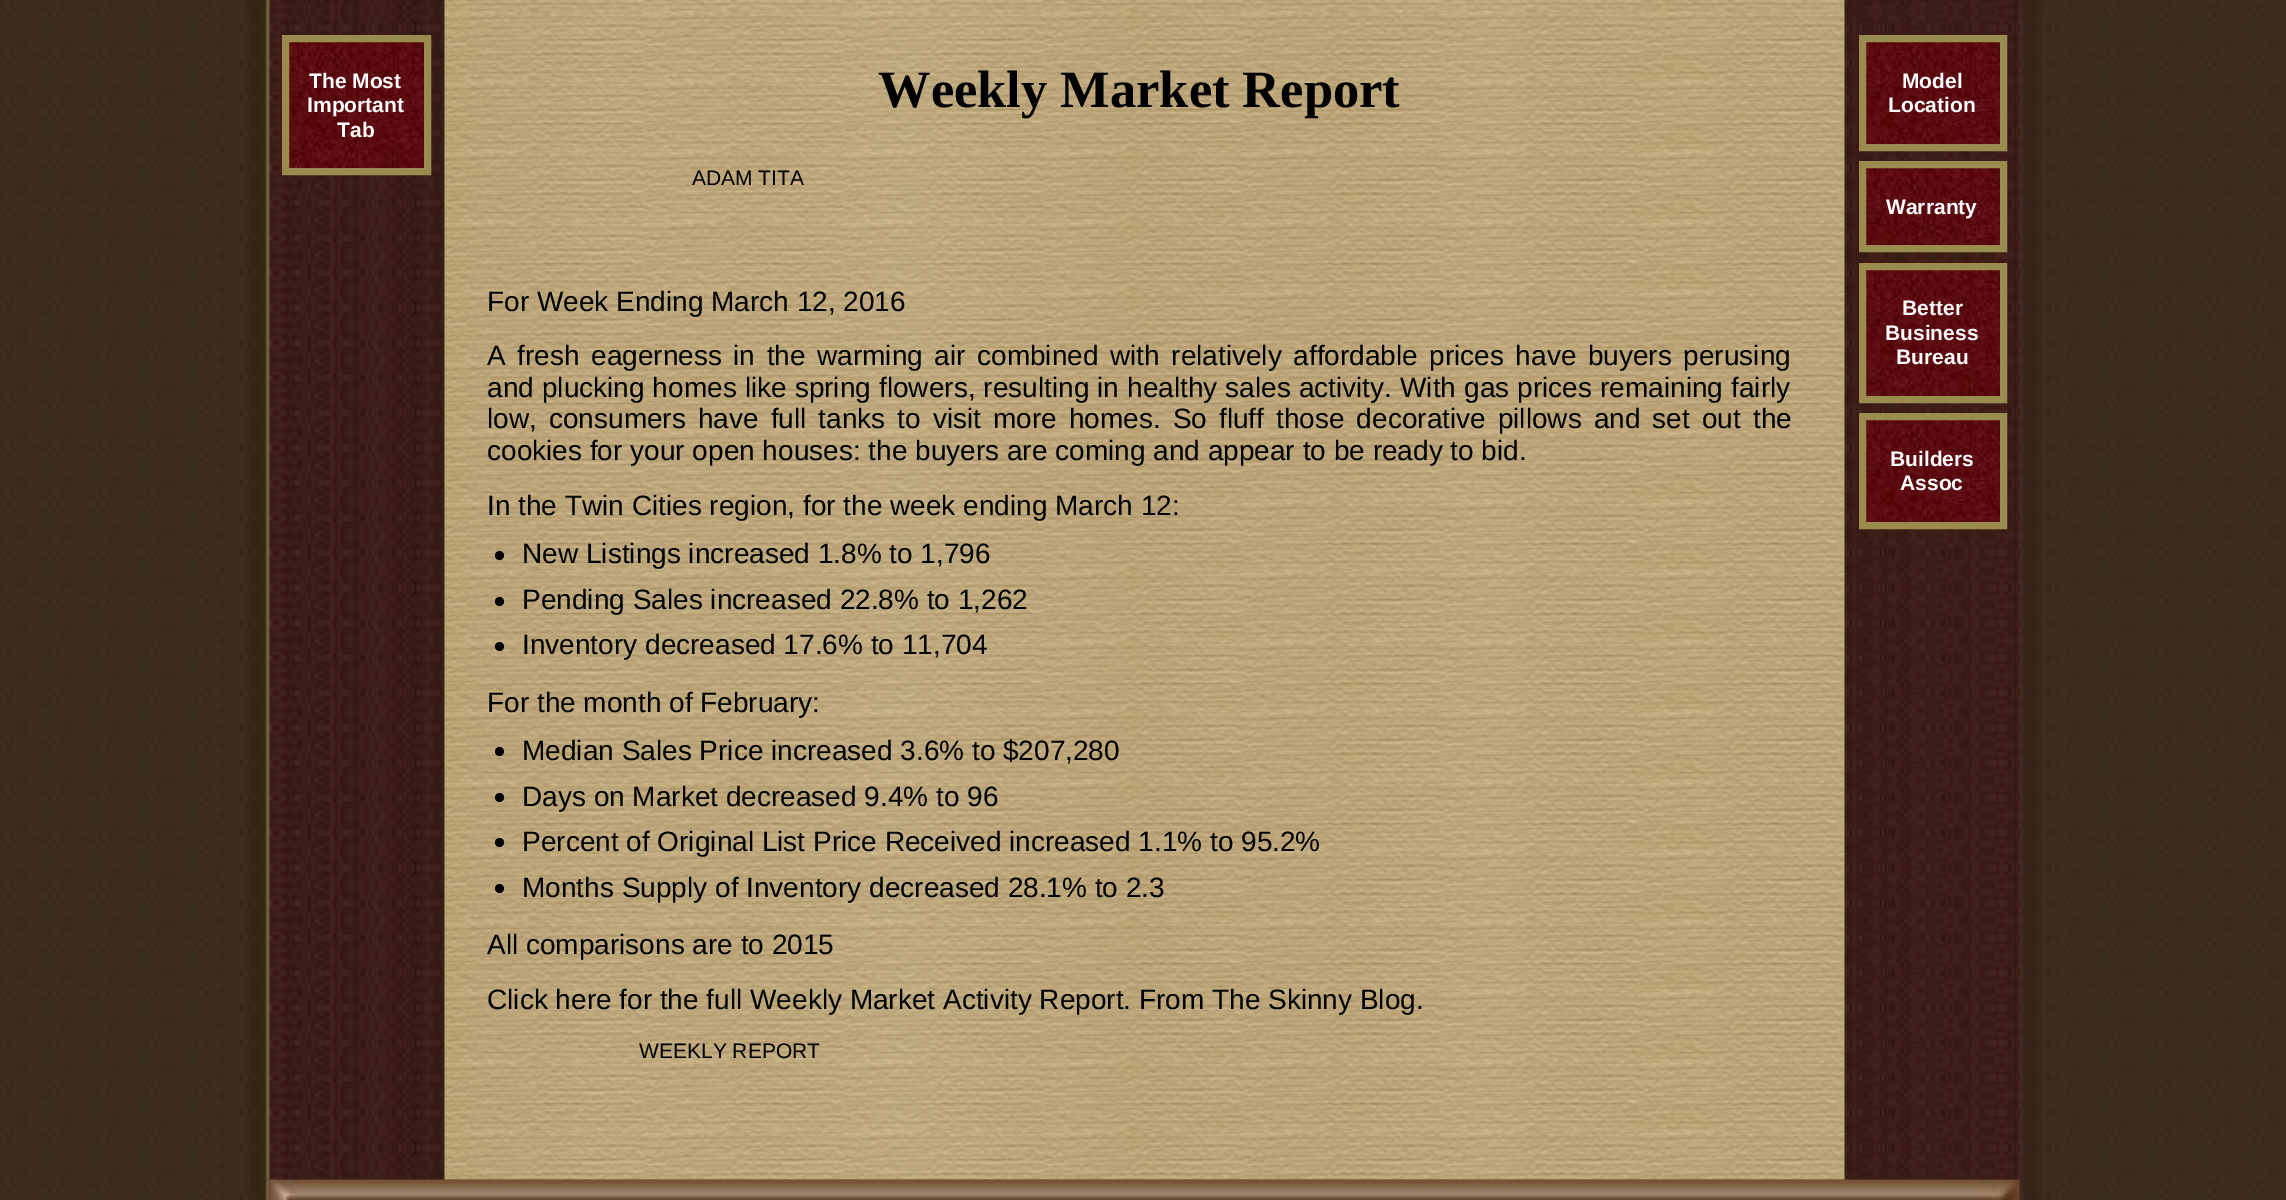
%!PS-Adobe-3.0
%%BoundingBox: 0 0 2286 1200
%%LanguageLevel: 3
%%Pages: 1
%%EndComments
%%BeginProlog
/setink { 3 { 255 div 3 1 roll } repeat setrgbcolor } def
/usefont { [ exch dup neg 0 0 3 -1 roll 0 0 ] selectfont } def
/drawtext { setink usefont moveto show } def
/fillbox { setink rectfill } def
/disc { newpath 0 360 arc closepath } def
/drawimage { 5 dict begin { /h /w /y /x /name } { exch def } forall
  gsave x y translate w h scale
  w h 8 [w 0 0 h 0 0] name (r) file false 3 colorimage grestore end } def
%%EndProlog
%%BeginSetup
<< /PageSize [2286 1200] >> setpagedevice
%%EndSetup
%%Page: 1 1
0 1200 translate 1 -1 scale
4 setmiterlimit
0 0 2286 1200 255 255 255 fillbox
(assets/img1.rgb) 0 0 2286 1200 drawimage
(assets/img9.rgb) 220 1179 1838 21 drawimage
(assets/img10.rgb) 269 1179 1751 21 drawimage
(assets/img3.rgb) 220 10 1846 1170 drawimage
(assets/img2.rgb) 220 0 1843 13 drawimage
(assets/img4.rgb) 281 35 143 140 drawimage
154 140 79 setink
7 setlinewidth
285.5 38.5 142 133 rectstroke
(The Most) 309 88 /LiberationSans-Bold 21 255 255 255 drawtext
(Important) 307 112 /LiberationSans-Bold 21 255 255 255 drawtext
(Tab) 337 137 /LiberationSans-Bold 21 255 255 255 drawtext
(Weekly Market Report) 878 107 /LiberationSerif-Bold 52.5 0 0 0 drawtext
(ADAM TITA) 692 185 /LiberationSans-Regular 21 0 0 0 drawtext
(For Week Ending March 12, 2016) 487 311 /LiberationSans-Regular 28 0 0 0 drawtext
487 365 moveto 3.75 0 32 (A fresh eagerness in the warming air combined with relatively affordable prices have buyers perusing) widthshow
487 397 moveto 0.25 0 32 (and plucking homes like spring flowers, resulting in healthy sales activity. With gas prices remaining fairly) widthshow
487 428 moveto 4.25 0 32 (low, consumers have full tanks to visit more homes. So fluff those decorative pillows and set out the) widthshow
(cookies for your open houses: the buyers are coming and appear to be ready to bid.) 487 460 /LiberationSans-Regular 28 0 0 0 drawtext
(In the Twin Cities region, for the week ending March 12:) 487 515 /LiberationSans-Regular 28 0 0 0 drawtext
499.5 555.5 4.5 disc fill
(New Listings increased 1.8% to 1,796) 522 563 /LiberationSans-Regular 28 0 0 0 drawtext
499.5 601.5 4.5 disc fill
(Pending Sales increased 22.8% to 1,262) 522 609 /LiberationSans-Regular 28 0 0 0 drawtext
499.5 646.5 4.5 disc fill
(Inventory decreased 17.6% to 11,704) 522 654 /LiberationSans-Regular 28 0 0 0 drawtext
(For the month of February:) 487 712 /LiberationSans-Regular 28 0 0 0 drawtext
499.5 751.5 4.5 disc fill
(Median Sales Price increased 3.6% to $207,280) 522 760 /LiberationSans-Regular 28 0 0 0 drawtext
499.5 797.5 4.5 disc fill
(Days on Market decreased 9.4% to 96) 522 806 /LiberationSans-Regular 28 0 0 0 drawtext
499.5 842.5 4.5 disc fill
(Percent of Original List Price Received increased 1.1% to 95.2%) 522 851 /LiberationSans-Regular 28 0 0 0 drawtext
499.5 888.5 4.5 disc fill
(Months Supply of Inventory decreased 28.1% to 2.3) 522 897 /LiberationSans-Regular 28 0 0 0 drawtext
(All comparisons are to 2015) 487 954 /LiberationSans-Regular 28 0 0 0 drawtext
(Click here for the full Weekly Market Activity Report. From The Skinny Blog.) 487 1009 /LiberationSans-Regular 28 0 0 0 drawtext
(WEEKLY REPORT) 639 1058 /LiberationSans-Regular 21 0 0 0 drawtext
(assets/img5.rgb) 1858 35 150 116 drawimage
154 140 79 setink
1862.5 38.5 141 109 rectstroke
(Model) 1902 88 /LiberationSans-Bold 21 255 255 255 drawtext
(Location) 1888 112 /LiberationSans-Bold 21 255 255 255 drawtext
(assets/img6.rgb) 1858 161 150 91 drawimage
154 140 79 setink
1862.5 164.5 141 84 rectstroke
(Warranty) 1886 214 /LiberationSans-Bold 21 255 255 255 drawtext
(assets/img7.rgb) 1858 262 150 141 drawimage
154 140 79 setink
1862.5 266.5 141 133 rectstroke
(Better) 1902 315 /LiberationSans-Bold 21 255 255 255 drawtext
(Business) 1885 340 /LiberationSans-Bold 21 255 255 255 drawtext
(Bureau) 1896 364 /LiberationSans-Bold 21 255 255 255 drawtext
(assets/img8.rgb) 1858 413 150 116 drawimage
154 140 79 setink
1862.5 416.5 141 109 rectstroke
(Builders) 1890 466 /LiberationSans-Bold 21 255 255 255 drawtext
(Assoc) 1900 490 /LiberationSans-Bold 21 255 255 255 drawtext
showpage
%%EOF
